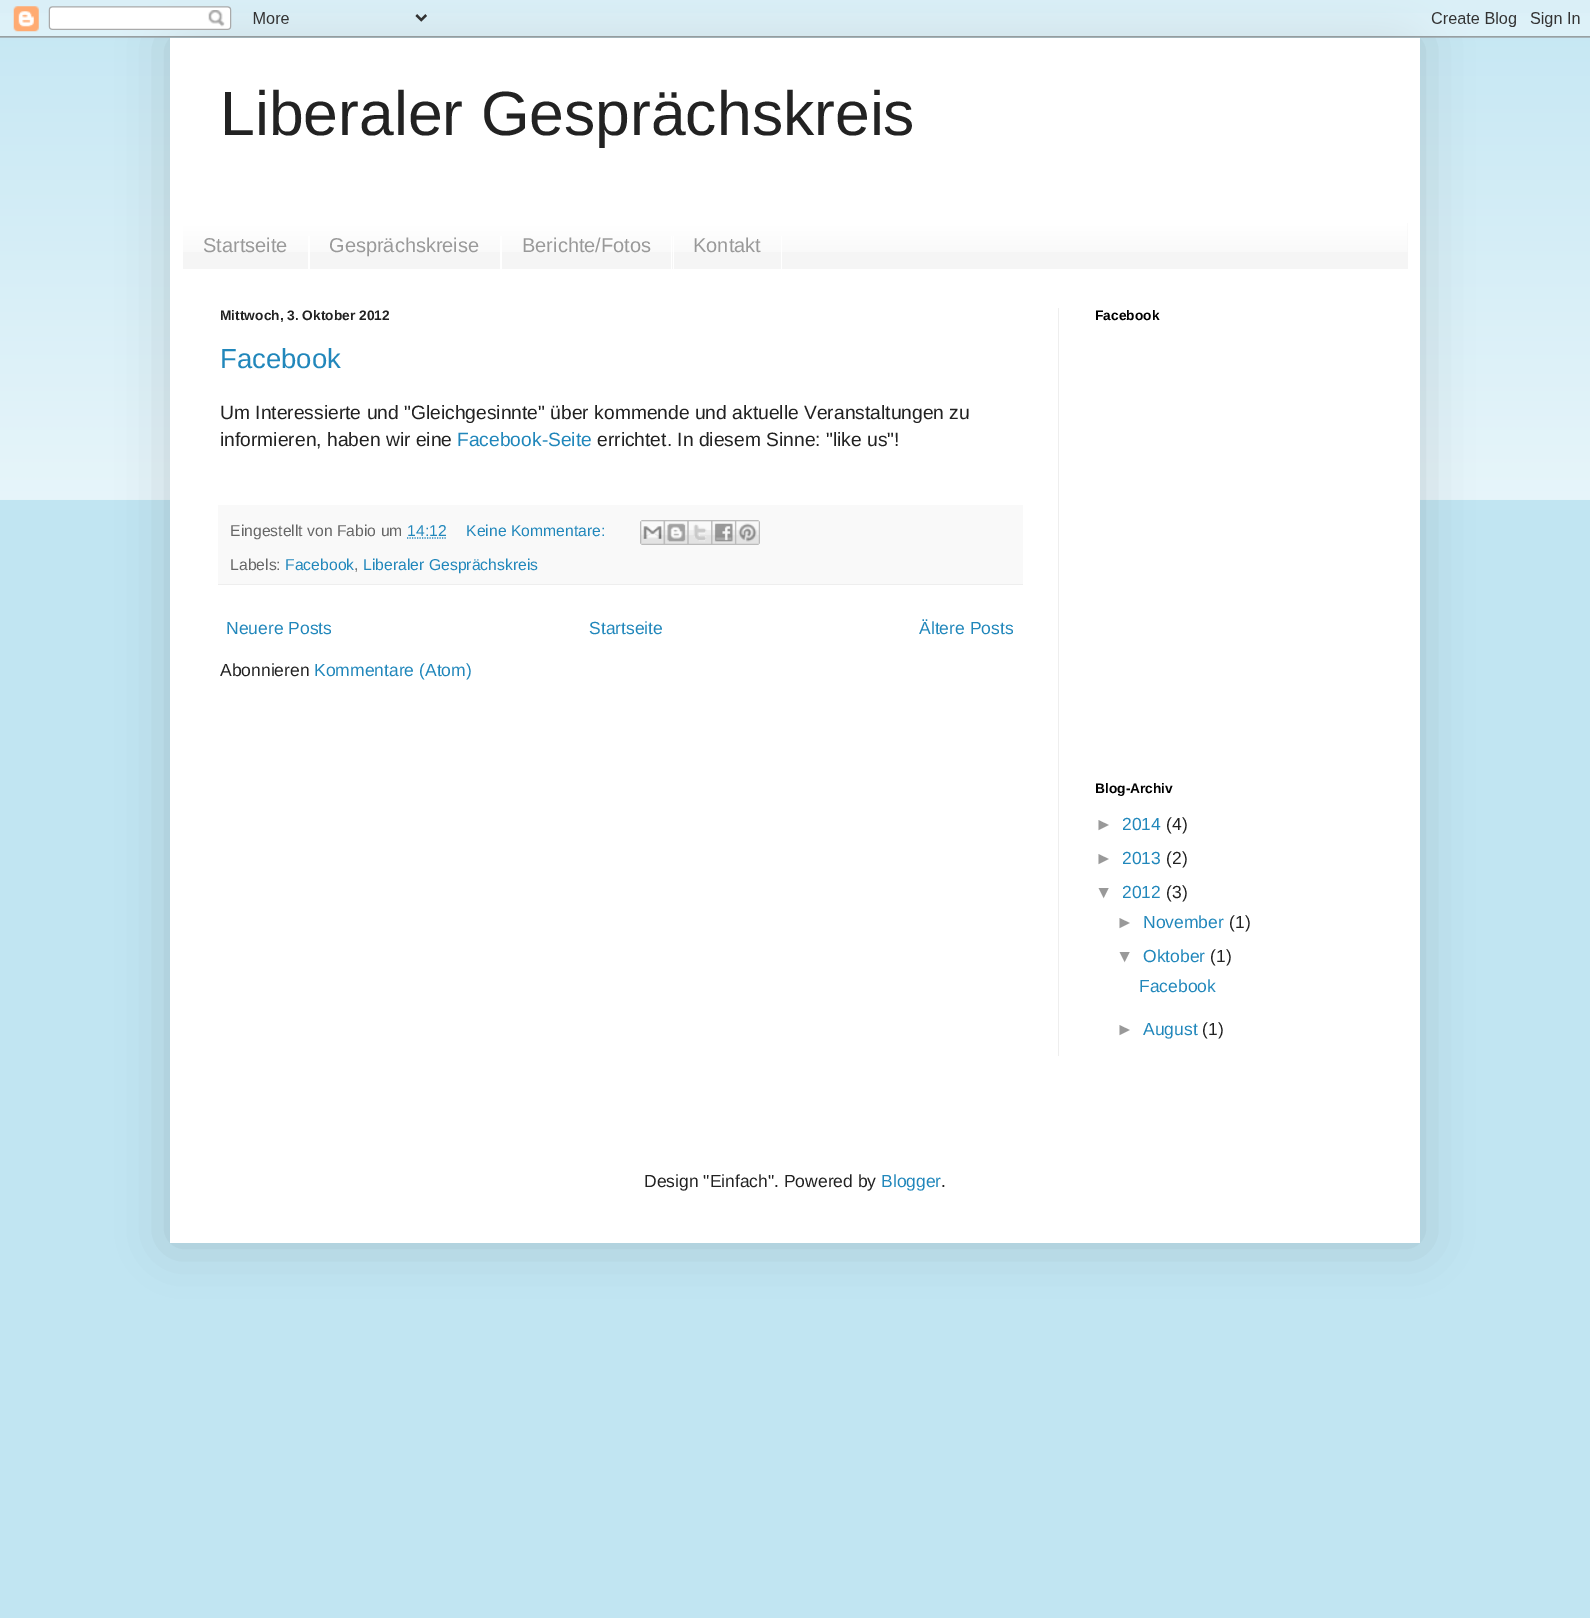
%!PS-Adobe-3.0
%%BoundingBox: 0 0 1590 1618
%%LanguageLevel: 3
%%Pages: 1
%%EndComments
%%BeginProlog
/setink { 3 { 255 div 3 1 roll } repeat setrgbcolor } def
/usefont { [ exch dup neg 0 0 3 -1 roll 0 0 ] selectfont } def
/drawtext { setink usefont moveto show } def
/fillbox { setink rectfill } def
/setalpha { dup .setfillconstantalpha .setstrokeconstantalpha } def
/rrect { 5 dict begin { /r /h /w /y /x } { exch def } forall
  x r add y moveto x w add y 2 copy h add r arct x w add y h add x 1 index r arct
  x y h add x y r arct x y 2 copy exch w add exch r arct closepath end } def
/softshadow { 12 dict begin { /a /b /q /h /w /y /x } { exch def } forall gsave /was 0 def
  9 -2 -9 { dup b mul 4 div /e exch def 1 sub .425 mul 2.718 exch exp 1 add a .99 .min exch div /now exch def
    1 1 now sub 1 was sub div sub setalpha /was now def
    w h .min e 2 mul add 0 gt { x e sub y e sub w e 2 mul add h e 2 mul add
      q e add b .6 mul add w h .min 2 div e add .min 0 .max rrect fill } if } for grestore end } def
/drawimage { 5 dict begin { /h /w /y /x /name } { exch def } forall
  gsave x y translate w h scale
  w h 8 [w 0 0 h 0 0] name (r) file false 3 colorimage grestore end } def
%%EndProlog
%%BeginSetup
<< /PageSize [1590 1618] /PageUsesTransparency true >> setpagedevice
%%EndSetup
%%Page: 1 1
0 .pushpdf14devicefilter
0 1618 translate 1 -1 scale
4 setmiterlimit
0 0 1590 1618 193 229 242 fillbox
(assets/img2.rgb) 0 13 1590 487 drawimage
0 0 0 setink
170 38 1250 1205 0 25 0.15 softshadow
(assets/img1.rgb) 0 0 1590 38 drawimage
170 38 1250 1205 255 255 255 fillbox
(Liberaler Gesprächskreis) 220 135 /LiberationSans-Regular 62.5 34 34 34 drawtext
183 223 1225 46 245 245 245 fillbox
(assets/img3.rgb) 183 223 1225 29 drawimage
308 236 2 33 255 255 255 fillbox
(Startseite) 203 252 /LiberationSans-Regular 20 153 153 153 drawtext
500 236 2 33 255 255 255 fillbox
(Gesprächskreise) 329 252 /LiberationSans-Regular 20 153 153 153 drawtext
671 236 1 33 255 255 255 fillbox
(Berichte/Fotos) 522 252 /LiberationSans-Regular 20 153 153 153 drawtext
781 236 1 33 255 255 255 fillbox
673 236 1 33 255 255 255 fillbox
(Kontakt) 693 252 /LiberationSans-Regular 20 153 153 153 drawtext
1058 308 1 748 238 238 238 fillbox
(Mittwoch, 3. Oktober 2012) 220 320 /LiberationSans-Bold 13.75 34 34 34 drawtext
(Facebook) 220 368 /LiberationSans-Regular 27.5 33 135 187 drawtext
(Um Interessierte und "Gleichgesinnte" über kommende und aktuelle Veranstaltungen zu) 220 419 /LiberationSans-Regular 19.25 34 34 34 drawtext
(informieren, haben wir eine) 220 446 /LiberationSans-Regular 19.25 34 34 34 drawtext
(Facebook-Seite) 457 446 /LiberationSans-Regular 19.25 33 135 187 drawtext
(errichtet. In diesem Sinne: "like us"!) 597 446 /LiberationSans-Regular 19.25 34 34 34 drawtext
218 505 805 79 249 249 249 fillbox
218 584 805 1 238 238 238 fillbox
(Eingestellt von Fabio um) 230 536 /LiberationSans-Regular 15.75 102 102 102 drawtext
(14:12) 407 536 /LiberationSans-Regular 15.75 33 135 187 drawtext
1.2 setlinewidth
[1.25 1.25] 0 setdash
407 538 moveto 446 538 lineto stroke
(Keine Kommentare:) 466 536 /LiberationSans-Regular 15.75 33 135 187 drawtext
(assets/img4.rgb) 640 520 24 25 drawimage
(assets/img5.rgb) 663 520 25 25 drawimage
(assets/img6.rgb) 687 520 25 25 drawimage
(assets/img7.rgb) 711 520 24 25 drawimage
(assets/img8.rgb) 735 520 25 25 drawimage
(Labels:) 230 570 /LiberationSans-Regular 15.75 102 102 102 drawtext
(Facebook) 285 570 /LiberationSans-Regular 15.75 33 135 187 drawtext
(,) 354 570 /LiberationSans-Regular 15.75 102 102 102 drawtext
(Liberaler Gesprächskreis) 363 570 /LiberationSans-Regular 15.75 33 135 187 drawtext
(Neuere Posts) 226 634 /LiberationSans-Regular 17.5 33 135 187 drawtext
(Startseite) 589 634 /LiberationSans-Regular 17.5 33 135 187 drawtext
(Ältere Posts) 919 634 /LiberationSans-Regular 17.5 33 135 187 drawtext
(Abonnieren) 220 676 /LiberationSans-Regular 17.5 34 34 34 drawtext
(Kommentare \(Atom\)) 314 676 /LiberationSans-Regular 17.5 33 135 187 drawtext
(Facebook) 1095 320 /LiberationSans-Bold 13.75 0 0 0 drawtext
(Blog-Archiv) 1095 793 /LiberationSans-Bold 13.75 0 0 0 drawtext
(►) 1095 830 /LiberationSans-Regular 17.5 153 153 153 drawtext
(2014) 1122 830 /LiberationSans-Regular 17.5 33 135 187 drawtext
(\(4\)) 1166 830 /LiberationSans-Regular 17.5 34 34 34 drawtext
(►) 1095 864 /LiberationSans-Regular 17.5 153 153 153 drawtext
(2013) 1122 864 /LiberationSans-Regular 17.5 33 135 187 drawtext
(\(2\)) 1166 864 /LiberationSans-Regular 17.5 34 34 34 drawtext
(▼) 1095 898 /LiberationSans-Regular 17.5 153 153 153 drawtext
(2012) 1122 898 /LiberationSans-Regular 17.5 33 135 187 drawtext
(\(3\)) 1166 898 /LiberationSans-Regular 17.5 34 34 34 drawtext
(►) 1116 928 /LiberationSans-Regular 17.5 153 153 153 drawtext
(November) 1143 928 /LiberationSans-Regular 17.5 33 135 187 drawtext
(\(1\)) 1229 928 /LiberationSans-Regular 17.5 34 34 34 drawtext
(▼) 1116 962 /LiberationSans-Regular 17.5 153 153 153 drawtext
(Oktober) 1143 962 /LiberationSans-Regular 17.5 33 135 187 drawtext
(\(1\)) 1210 962 /LiberationSans-Regular 17.5 34 34 34 drawtext
(Facebook) 1139 992 /LiberationSans-Regular 17.5 33 135 187 drawtext
(►) 1116 1035 /LiberationSans-Regular 17.5 153 153 153 drawtext
(August) 1143 1035 /LiberationSans-Regular 17.5 33 135 187 drawtext
(\(1\)) 1202 1035 /LiberationSans-Regular 17.5 34 34 34 drawtext
(Design "Einfach". Powered by) 644 1187 /LiberationSans-Regular 17.5 34 34 34 drawtext
(Blogger) 881 1187 /LiberationSans-Regular 17.5 33 135 187 drawtext
(.) 941 1187 /LiberationSans-Regular 17.5 34 34 34 drawtext
.poppdf14devicefilter showpage
%%EOF
